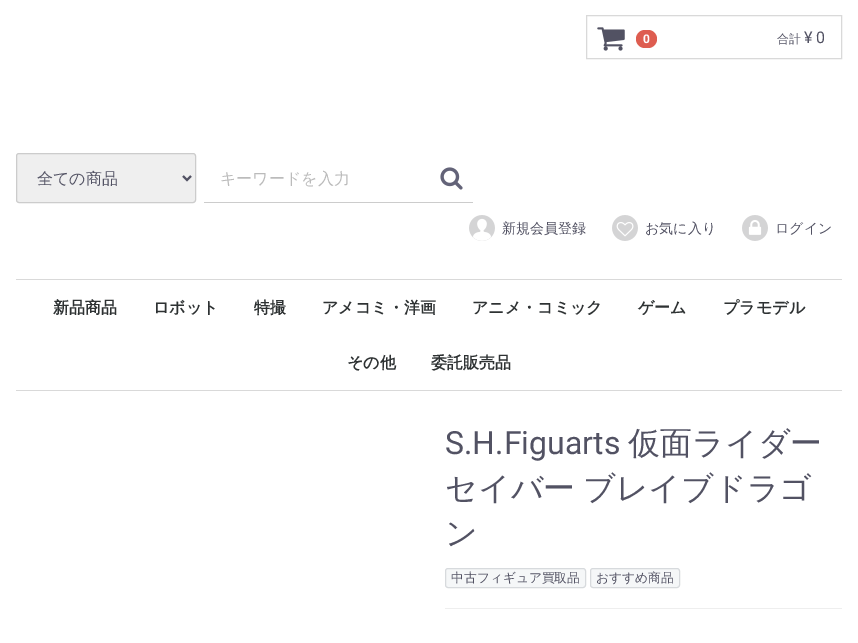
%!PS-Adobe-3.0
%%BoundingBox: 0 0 858 643
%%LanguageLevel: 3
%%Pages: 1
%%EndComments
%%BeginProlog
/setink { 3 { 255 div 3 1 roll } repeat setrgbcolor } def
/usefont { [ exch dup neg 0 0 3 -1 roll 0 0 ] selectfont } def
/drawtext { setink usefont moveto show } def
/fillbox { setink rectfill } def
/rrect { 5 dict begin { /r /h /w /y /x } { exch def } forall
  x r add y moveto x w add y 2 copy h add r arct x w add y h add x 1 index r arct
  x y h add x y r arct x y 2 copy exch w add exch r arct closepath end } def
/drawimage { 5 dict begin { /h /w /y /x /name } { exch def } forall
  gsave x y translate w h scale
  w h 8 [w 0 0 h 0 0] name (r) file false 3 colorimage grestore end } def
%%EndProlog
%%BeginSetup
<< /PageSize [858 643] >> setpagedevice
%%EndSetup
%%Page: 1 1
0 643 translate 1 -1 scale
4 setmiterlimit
0 0 858 643 255 255 255 fillbox
217 217 217 setink
586.5 15.5 255 43 rectstroke
(assets/img1.rgb) 597 27 28 24 drawimage
222 93 80 setink
636 30 21 18 9 rrect fill
(0) 643 43 /Roboto-Bold 12 255 255 255 drawtext
(合計) 777 43 /WenQuanYiZenHei-Medium 12 82 82 99 drawtext
(¥ 0) 804 43 /Roboto-Regular 16 82 82 99 drawtext
239 239 239 setink
16.5 153.5 179 49 2.5 rrect gsave fill grestore
204 204 204 setink
stroke
82 82 99 setink
2 setlinewidth
183 176 moveto 187 180 lineto 191 176 lineto stroke
(全ての商品) 37 184 /WenQuanYiZenHei-Medium 16 82 82 99 drawtext
204 202 269 1 204 204 204 fillbox
(キーワードを入力) 220 184 /WenQuanYiZenHei-Medium 16 187 187 187 drawtext
(assets/img2.rgb) 440 167 23 23 drawimage
(assets/img3.rgb) 469 215 26 26 drawimage
(新規会員登録) 502 233 /WenQuanYiZenHei-Medium 14 82 82 99 drawtext
(assets/img4.rgb) 612 215 26 26 drawimage
(お気に入り) 645 233 /WenQuanYiZenHei-Medium 14 82 82 99 drawtext
(assets/img5.rgb) 742 215 26 26 drawimage
(ログイン) 775 233 /WenQuanYiZenHei-Medium 14 82 82 99 drawtext
16 279 826 1 217 217 217 fillbox
16 390 826 1 217 217 217 fillbox
(新品商品) 53 313 /WenQuanYiZenHei-Bold 16 46 50 51 drawtext
(ロボット) 153 313 /WenQuanYiZenHei-Bold 16 46 50 51 drawtext
(特撮) 254 313 /WenQuanYiZenHei-Bold 16 46 50 51 drawtext
(アメコミ・洋画) 322 313 /WenQuanYiZenHei-Bold 16 46 50 51 drawtext
(アニメ・コミック) 472 313 /WenQuanYiZenHei-Bold 16 46 50 51 drawtext
(ゲーム) 638 313 /WenQuanYiZenHei-Bold 16 46 50 51 drawtext
(プラモデル) 723 313 /WenQuanYiZenHei-Bold 16 46 50 51 drawtext
(その他) 347 368 /WenQuanYiZenHei-Bold 16 46 50 51 drawtext
(委託販売品) 431 368 /WenQuanYiZenHei-Bold 16 46 50 51 drawtext
(S.H.Figuarts) 445 454 /Roboto-Regular 32 82 82 99 drawtext
(仮面ライダー) 628 454 /WenQuanYiZenHei-Medium 32 82 82 99 drawtext
445 499 moveto -2 0 32 (セイバー ブレイブドラゴ) widthshow
(ン) 445 544 /WenQuanYiZenHei-Medium 32 82 82 99 drawtext
245 247 248 setink
445.5 568.5 140 19 2.5 rrect gsave fill grestore
215 218 221 setink
1 setlinewidth
stroke
(中古フィギュア買取品) 451 582 /WenQuanYiZenHei-Medium 12.75 82 82 99 drawtext
245 247 248 setink
590.5 568.5 89 19 2.5 rrect gsave fill grestore
215 218 221 setink
stroke
(おすすめ商品) 596 582 /WenQuanYiZenHei-Medium 12.75 82 82 99 drawtext
445 608 397 1 238 238 238 fillbox
showpage
%%EOF
